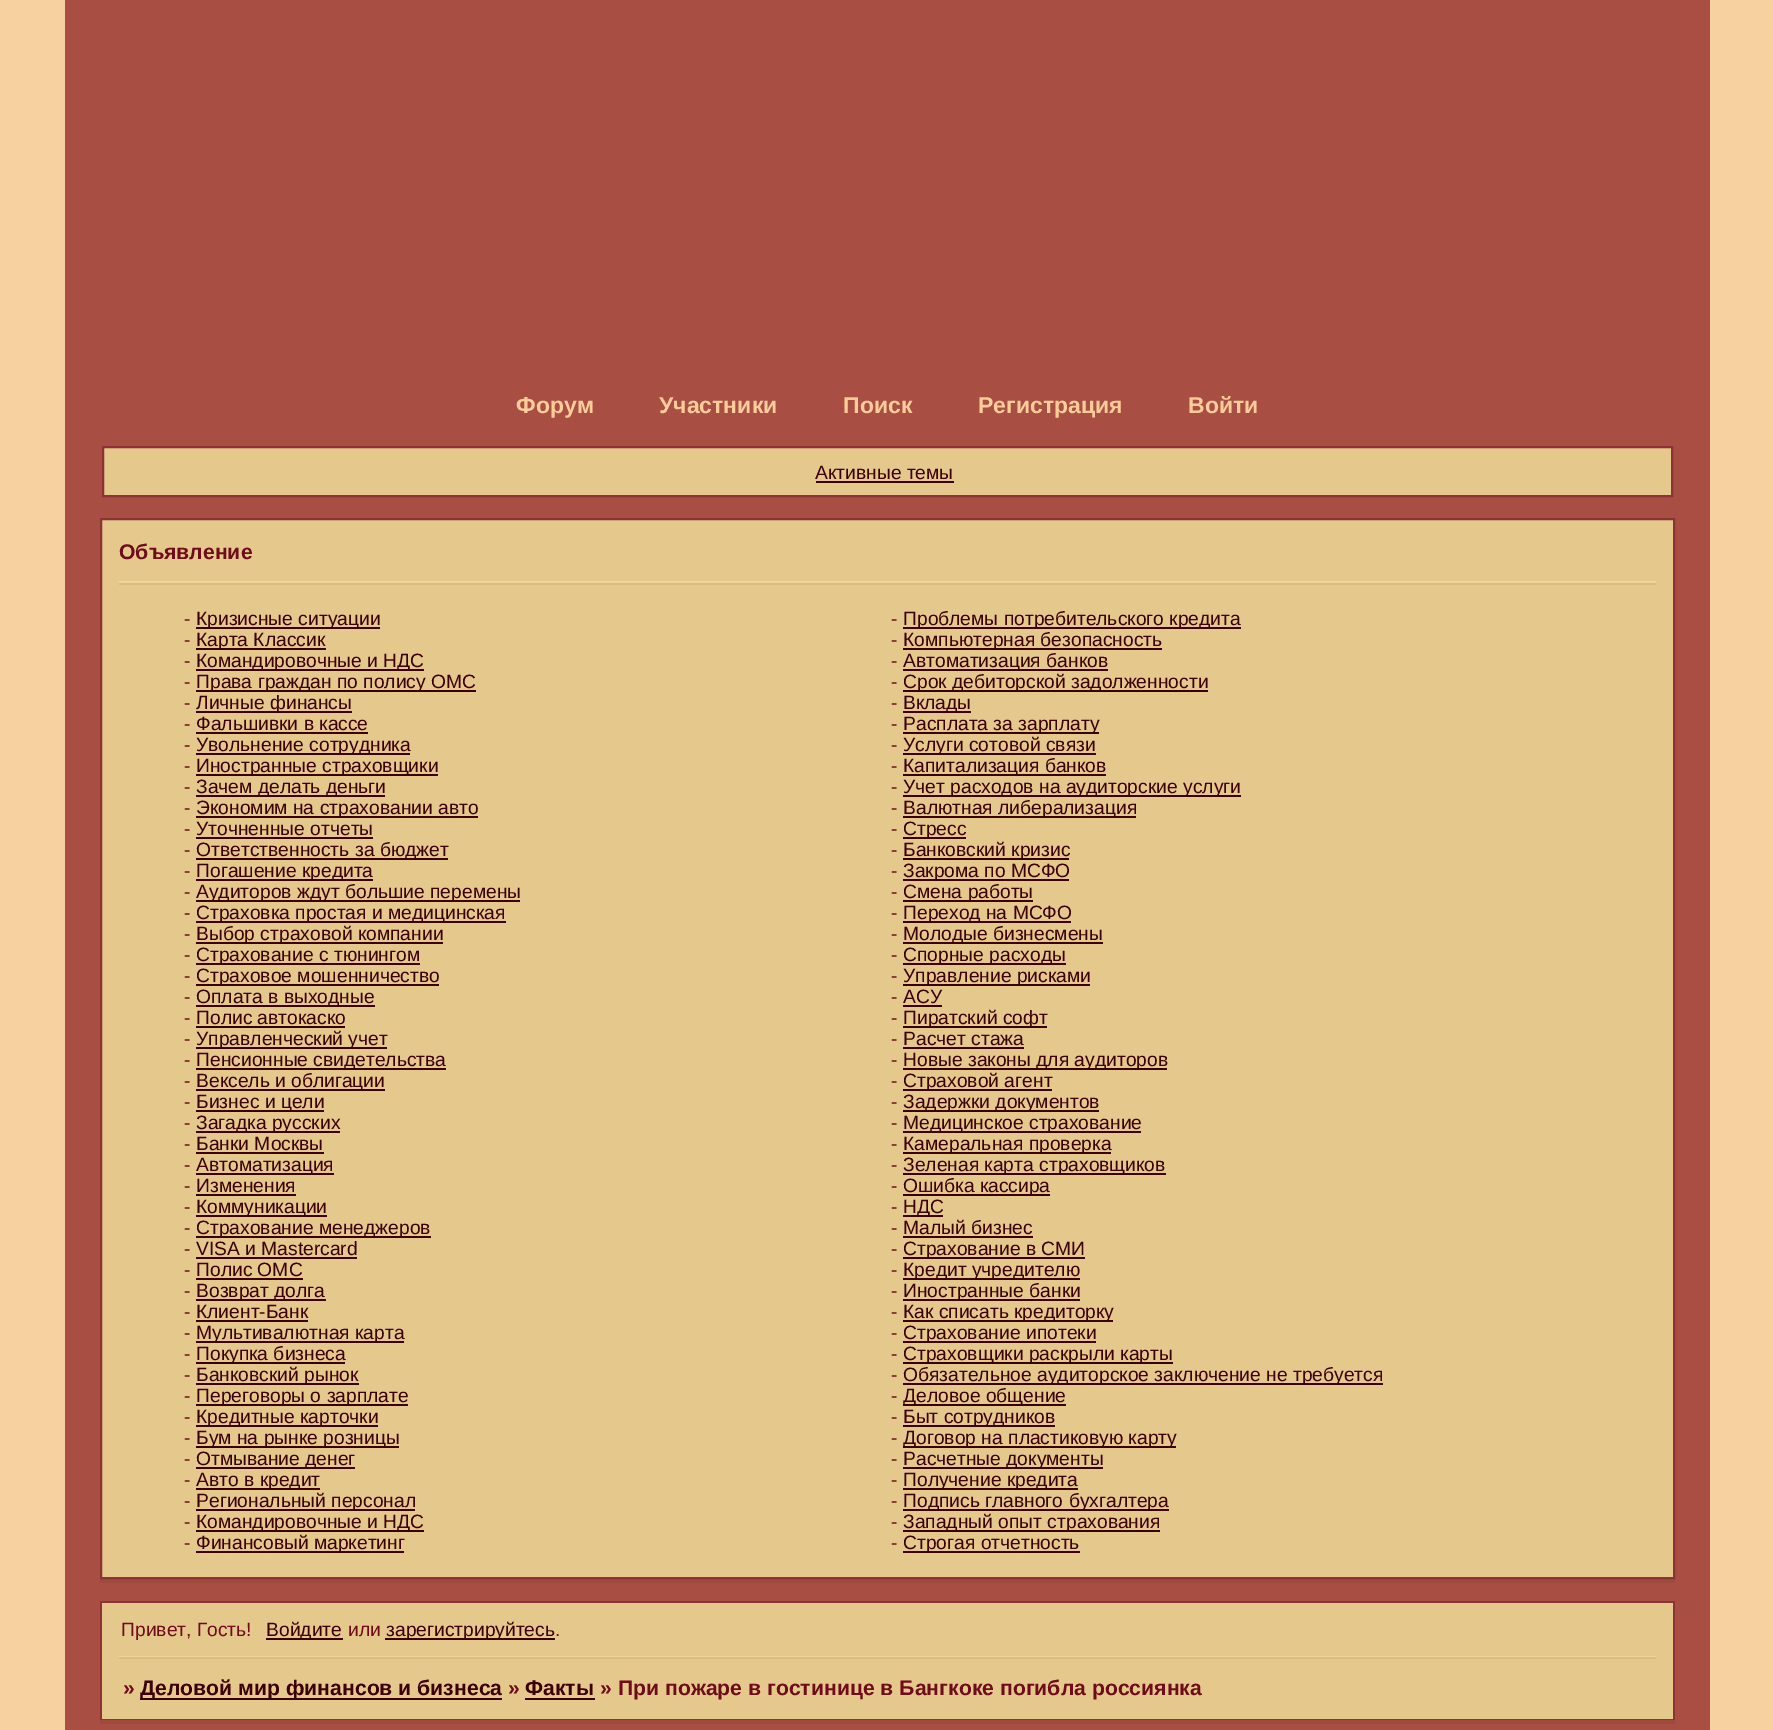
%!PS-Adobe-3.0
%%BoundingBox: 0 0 1773 1730
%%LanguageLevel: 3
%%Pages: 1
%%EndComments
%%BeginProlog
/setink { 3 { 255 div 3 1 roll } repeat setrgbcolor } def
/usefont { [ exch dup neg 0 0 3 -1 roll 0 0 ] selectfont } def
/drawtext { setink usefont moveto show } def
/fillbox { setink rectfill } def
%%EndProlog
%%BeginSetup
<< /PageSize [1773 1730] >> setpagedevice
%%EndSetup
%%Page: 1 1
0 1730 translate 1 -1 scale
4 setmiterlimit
0 0 1773 1730 247 209 160 fillbox
65 0 1645 1730 168 78 67 fillbox
(Форум) 516 413 /LiberationSans-Bold 23 255 205 154 drawtext
(Участники) 659 413 /LiberationSans-Bold 23 255 205 154 drawtext
(Поиск) 843 413 /LiberationSans-Bold 23 255 205 154 drawtext
(Регистрация) 978 413 /LiberationSans-Bold 23 255 205 154 drawtext
(Войти) 1188 413 /LiberationSans-Bold 23 255 205 154 drawtext
229 200 139 setink
103 447 moveto 1672 447 lineto 1672 496 lineto 103 496 lineto closepath gsave fill grestore
139 51 55 setink
2 setlinewidth
stroke
(Активные темы) 815 479 /LiberationSans-Regular 19.25 60 0 7 drawtext
816 481 138 2 60 0 7 fillbox
100 1579 1575 4 158 74 63 fillbox
229 200 139 setink
101 519 moveto 1674 519 lineto 1674 1578 lineto 101 1578 lineto closepath gsave fill grestore
139 51 55 setink
stroke
119 583 1537 2 217 190 132 fillbox
119 581 1537 2 242 212 148 fillbox
(Объявление) 119 559 /LiberationSans-Bold 21.2 112 11 28 drawtext
(-) 184 625 /LiberationSans-Regular 19.25 112 11 28 drawtext
196 627 184 2 60 0 7 fillbox
(Кризисные ситуации) 196 625 /LiberationSans-Regular 19.25 60 0 7 drawtext
(-) 184 646 /LiberationSans-Regular 19.25 112 11 28 drawtext
196 648 130 2 60 0 7 fillbox
(Карта Классик) 196 646 /LiberationSans-Regular 19.25 60 0 7 drawtext
(-) 184 667 /LiberationSans-Regular 19.25 112 11 28 drawtext
196 669 228 2 60 0 7 fillbox
(Командировочные и НДС) 196 667 /LiberationSans-Regular 19.25 60 0 7 drawtext
(-) 184 688 /LiberationSans-Regular 19.25 112 11 28 drawtext
196 690 280 2 60 0 7 fillbox
(Права граждан по полису ОМС) 196 688 /LiberationSans-Regular 19.25 60 0 7 drawtext
(-) 184 709 /LiberationSans-Regular 19.25 112 11 28 drawtext
196 711 156 2 60 0 7 fillbox
(Личные финансы) 196 709 /LiberationSans-Regular 19.25 60 0 7 drawtext
(-) 184 730 /LiberationSans-Regular 19.25 112 11 28 drawtext
(Фальшивки в кассе) 196 730 /LiberationSans-Regular 19.25 60 0 7 drawtext
196 732 172 2 60 0 7 fillbox
(-) 184 751 /LiberationSans-Regular 19.25 112 11 28 drawtext
196 753 214 2 60 0 7 fillbox
(Увольнение сотрудника) 196 751 /LiberationSans-Regular 19.25 60 0 7 drawtext
(-) 184 772 /LiberationSans-Regular 19.25 112 11 28 drawtext
196 774 242 2 60 0 7 fillbox
(Иностранные страховщики) 196 772 /LiberationSans-Regular 19.25 60 0 7 drawtext
(-) 184 793 /LiberationSans-Regular 19.25 112 11 28 drawtext
196 795 189 2 60 0 7 fillbox
(Зачем делать деньги) 196 793 /LiberationSans-Regular 19.25 60 0 7 drawtext
(-) 184 814 /LiberationSans-Regular 19.25 112 11 28 drawtext
196 816 282 2 60 0 7 fillbox
(Экономим на страховании авто) 196 814 /LiberationSans-Regular 19.25 60 0 7 drawtext
(-) 184 835 /LiberationSans-Regular 19.25 112 11 28 drawtext
(Уточненные отчеты) 196 835 /LiberationSans-Regular 19.25 60 0 7 drawtext
196 837 177 2 60 0 7 fillbox
(-) 184 856 /LiberationSans-Regular 19.25 112 11 28 drawtext
196 858 252 2 60 0 7 fillbox
(Ответственность за бюджет) 196 856 /LiberationSans-Regular 19.25 60 0 7 drawtext
(-) 184 877 /LiberationSans-Regular 19.25 112 11 28 drawtext
196 879 177 2 60 0 7 fillbox
(Погашение кредита) 196 877 /LiberationSans-Regular 19.25 60 0 7 drawtext
(-) 184 898 /LiberationSans-Regular 19.25 112 11 28 drawtext
196 900 324 2 60 0 7 fillbox
(Аудиторов ждут большие перемены) 196 898 /LiberationSans-Regular 19.25 60 0 7 drawtext
(-) 184 919 /LiberationSans-Regular 19.25 112 11 28 drawtext
196 921 310 2 60 0 7 fillbox
(Страховка простая и медицинская) 196 919 /LiberationSans-Regular 19.25 60 0 7 drawtext
(-) 184 940 /LiberationSans-Regular 19.25 112 11 28 drawtext
196 942 247 2 60 0 7 fillbox
(Выбор страховой компании) 196 940 /LiberationSans-Regular 19.25 60 0 7 drawtext
(-) 184 961 /LiberationSans-Regular 19.25 112 11 28 drawtext
196 963 224 2 60 0 7 fillbox
(Страхование с тюнингом) 196 961 /LiberationSans-Regular 19.25 60 0 7 drawtext
(-) 184 982 /LiberationSans-Regular 19.25 112 11 28 drawtext
196 984 243 2 60 0 7 fillbox
(Страховое мошенничество) 196 982 /LiberationSans-Regular 19.25 60 0 7 drawtext
(-) 184 1003 /LiberationSans-Regular 19.25 112 11 28 drawtext
196 1005 179 2 60 0 7 fillbox
(Оплата в выходные) 196 1003 /LiberationSans-Regular 19.25 60 0 7 drawtext
(-) 184 1024 /LiberationSans-Regular 19.25 112 11 28 drawtext
(Полис автокаско) 196 1024 /LiberationSans-Regular 19.25 60 0 7 drawtext
196 1026 149 2 60 0 7 fillbox
(-) 184 1045 /LiberationSans-Regular 19.25 112 11 28 drawtext
196 1047 191 2 60 0 7 fillbox
(Управленческий учет) 196 1045 /LiberationSans-Regular 19.25 60 0 7 drawtext
(-) 184 1066 /LiberationSans-Regular 19.25 112 11 28 drawtext
196 1068 250 2 60 0 7 fillbox
(Пенсионные свидетельства) 196 1066 /LiberationSans-Regular 19.25 60 0 7 drawtext
(-) 184 1087 /LiberationSans-Regular 19.25 112 11 28 drawtext
196 1089 189 2 60 0 7 fillbox
(Вексель и облигации) 196 1087 /LiberationSans-Regular 19.25 60 0 7 drawtext
(-) 184 1108 /LiberationSans-Regular 19.25 112 11 28 drawtext
196 1110 128 2 60 0 7 fillbox
(Бизнес и цели) 196 1108 /LiberationSans-Regular 19.25 60 0 7 drawtext
(-) 184 1129 /LiberationSans-Regular 19.25 112 11 28 drawtext
196 1131 144 2 60 0 7 fillbox
(Загадка русских) 196 1129 /LiberationSans-Regular 19.25 60 0 7 drawtext
(-) 184 1150 /LiberationSans-Regular 19.25 112 11 28 drawtext
(Банки Москвы) 196 1150 /LiberationSans-Regular 19.25 60 0 7 drawtext
196 1152 128 2 60 0 7 fillbox
(-) 184 1171 /LiberationSans-Regular 19.25 112 11 28 drawtext
196 1173 138 2 60 0 7 fillbox
(Автоматизация) 196 1171 /LiberationSans-Regular 19.25 60 0 7 drawtext
(-) 184 1192 /LiberationSans-Regular 19.25 112 11 28 drawtext
(Изменения) 196 1192 /LiberationSans-Regular 19.25 60 0 7 drawtext
196 1194 100 2 60 0 7 fillbox
(-) 184 1213 /LiberationSans-Regular 19.25 112 11 28 drawtext
196 1215 131 2 60 0 7 fillbox
(Коммуникации) 196 1213 /LiberationSans-Regular 19.25 60 0 7 drawtext
(-) 184 1234 /LiberationSans-Regular 19.25 112 11 28 drawtext
196 1236 235 2 60 0 7 fillbox
(Страхование менеджеров) 196 1234 /LiberationSans-Regular 19.25 60 0 7 drawtext
(-) 184 1255 /LiberationSans-Regular 19.25 112 11 28 drawtext
(VISA и Mastercard) 196 1255 /LiberationSans-Regular 19.25 60 0 7 drawtext
196 1257 161 2 60 0 7 fillbox
(-) 184 1276 /LiberationSans-Regular 19.25 112 11 28 drawtext
(Полис ОМС) 196 1276 /LiberationSans-Regular 19.25 60 0 7 drawtext
196 1278 107 2 60 0 7 fillbox
(-) 184 1297 /LiberationSans-Regular 19.25 112 11 28 drawtext
196 1299 130 2 60 0 7 fillbox
(Возврат долга) 196 1297 /LiberationSans-Regular 19.25 60 0 7 drawtext
(-) 184 1318 /LiberationSans-Regular 19.25 112 11 28 drawtext
(Клиент-Банк) 196 1318 /LiberationSans-Regular 19.25 60 0 7 drawtext
196 1320 112 2 60 0 7 fillbox
(-) 184 1339 /LiberationSans-Regular 19.25 112 11 28 drawtext
196 1341 208 2 60 0 7 fillbox
(Мультивалютная карта) 196 1339 /LiberationSans-Regular 19.25 60 0 7 drawtext
(-) 184 1360 /LiberationSans-Regular 19.25 112 11 28 drawtext
196 1362 149 2 60 0 7 fillbox
(Покупка бизнеса) 196 1360 /LiberationSans-Regular 19.25 60 0 7 drawtext
(-) 184 1381 /LiberationSans-Regular 19.25 112 11 28 drawtext
196 1383 163 2 60 0 7 fillbox
(Банковский рынок) 196 1381 /LiberationSans-Regular 19.25 60 0 7 drawtext
(-) 184 1402 /LiberationSans-Regular 19.25 112 11 28 drawtext
196 1404 212 2 60 0 7 fillbox
(Переговоры о зарплате) 196 1402 /LiberationSans-Regular 19.25 60 0 7 drawtext
(-) 184 1423 /LiberationSans-Regular 19.25 112 11 28 drawtext
196 1425 182 2 60 0 7 fillbox
(Кредитные карточки) 196 1423 /LiberationSans-Regular 19.25 60 0 7 drawtext
(-) 184 1444 /LiberationSans-Regular 19.25 112 11 28 drawtext
196 1446 203 2 60 0 7 fillbox
(Бум на рынке розницы) 196 1444 /LiberationSans-Regular 19.25 60 0 7 drawtext
(-) 184 1465 /LiberationSans-Regular 19.25 112 11 28 drawtext
196 1467 159 2 60 0 7 fillbox
(Отмывание денег) 196 1465 /LiberationSans-Regular 19.25 60 0 7 drawtext
(-) 184 1486 /LiberationSans-Regular 19.25 112 11 28 drawtext
196 1488 124 2 60 0 7 fillbox
(Авто в кредит) 196 1486 /LiberationSans-Regular 19.25 60 0 7 drawtext
(-) 184 1507 /LiberationSans-Regular 19.25 112 11 28 drawtext
196 1509 219 2 60 0 7 fillbox
(Региональный персонал) 196 1507 /LiberationSans-Regular 19.25 60 0 7 drawtext
(-) 184 1528 /LiberationSans-Regular 19.25 112 11 28 drawtext
196 1530 228 2 60 0 7 fillbox
(Командировочные и НДС) 196 1528 /LiberationSans-Regular 19.25 60 0 7 drawtext
(-) 184 1549 /LiberationSans-Regular 19.25 112 11 28 drawtext
196 1551 208 2 60 0 7 fillbox
(Финансовый маркетинг) 196 1549 /LiberationSans-Regular 19.25 60 0 7 drawtext
(-) 891 625 /LiberationSans-Regular 19.25 112 11 28 drawtext
903 627 338 2 60 0 7 fillbox
(Проблемы потребительского кредита) 903 625 /LiberationSans-Regular 19.25 60 0 7 drawtext
(-) 891 646 /LiberationSans-Regular 19.25 112 11 28 drawtext
903 648 259 2 60 0 7 fillbox
(Компьютерная безопасность) 903 646 /LiberationSans-Regular 19.25 60 0 7 drawtext
(-) 891 667 /LiberationSans-Regular 19.25 112 11 28 drawtext
903 669 205 2 60 0 7 fillbox
(Автоматизация банков) 903 667 /LiberationSans-Regular 19.25 60 0 7 drawtext
(-) 891 688 /LiberationSans-Regular 19.25 112 11 28 drawtext
903 690 305 2 60 0 7 fillbox
(Срок дебиторской задолженности) 903 688 /LiberationSans-Regular 19.25 60 0 7 drawtext
(-) 891 709 /LiberationSans-Regular 19.25 112 11 28 drawtext
903 711 68 2 60 0 7 fillbox
(Вклады) 903 709 /LiberationSans-Regular 19.25 60 0 7 drawtext
(-) 891 730 /LiberationSans-Regular 19.25 112 11 28 drawtext
903 732 196 2 60 0 7 fillbox
(Расплата за зарплату) 903 730 /LiberationSans-Regular 19.25 60 0 7 drawtext
(-) 891 751 /LiberationSans-Regular 19.25 112 11 28 drawtext
903 753 193 2 60 0 7 fillbox
(Услуги сотовой связи) 903 751 /LiberationSans-Regular 19.25 60 0 7 drawtext
(-) 891 772 /LiberationSans-Regular 19.25 112 11 28 drawtext
903 774 203 2 60 0 7 fillbox
(Капитализация банков) 903 772 /LiberationSans-Regular 19.25 60 0 7 drawtext
(-) 891 793 /LiberationSans-Regular 19.25 112 11 28 drawtext
903 795 338 2 60 0 7 fillbox
(Учет расходов на аудиторские услуги) 903 793 /LiberationSans-Regular 19.25 60 0 7 drawtext
(-) 891 814 /LiberationSans-Regular 19.25 112 11 28 drawtext
903 816 233 2 60 0 7 fillbox
(Валютная либерализация) 903 814 /LiberationSans-Regular 19.25 60 0 7 drawtext
(-) 891 835 /LiberationSans-Regular 19.25 112 11 28 drawtext
903 837 63 2 60 0 7 fillbox
(Стресс) 903 835 /LiberationSans-Regular 19.25 60 0 7 drawtext
(-) 891 856 /LiberationSans-Regular 19.25 112 11 28 drawtext
903 858 166 2 60 0 7 fillbox
(Банковский кризис) 903 856 /LiberationSans-Regular 19.25 60 0 7 drawtext
(-) 891 877 /LiberationSans-Regular 19.25 112 11 28 drawtext
903 879 166 2 60 0 7 fillbox
(Закрома по МСФО) 903 877 /LiberationSans-Regular 19.25 60 0 7 drawtext
(-) 891 898 /LiberationSans-Regular 19.25 112 11 28 drawtext
903 900 130 2 60 0 7 fillbox
(Смена работы) 903 898 /LiberationSans-Regular 19.25 60 0 7 drawtext
(-) 891 919 /LiberationSans-Regular 19.25 112 11 28 drawtext
903 921 168 2 60 0 7 fillbox
(Переход на МСФО) 903 919 /LiberationSans-Regular 19.25 60 0 7 drawtext
(-) 891 940 /LiberationSans-Regular 19.25 112 11 28 drawtext
903 942 200 2 60 0 7 fillbox
(Молодые бизнесмены) 903 940 /LiberationSans-Regular 19.25 60 0 7 drawtext
(-) 891 961 /LiberationSans-Regular 19.25 112 11 28 drawtext
903 963 163 2 60 0 7 fillbox
(Спорные расходы) 903 961 /LiberationSans-Regular 19.25 60 0 7 drawtext
(-) 891 982 /LiberationSans-Regular 19.25 112 11 28 drawtext
903 984 187 2 60 0 7 fillbox
(Управление рисками) 903 982 /LiberationSans-Regular 19.25 60 0 7 drawtext
(-) 891 1003 /LiberationSans-Regular 19.25 112 11 28 drawtext
(АСУ) 903 1003 /LiberationSans-Regular 19.25 60 0 7 drawtext
903 1005 39 2 60 0 7 fillbox
(-) 891 1024 /LiberationSans-Regular 19.25 112 11 28 drawtext
903 1026 144 2 60 0 7 fillbox
(Пиратский софт) 903 1024 /LiberationSans-Regular 19.25 60 0 7 drawtext
(-) 891 1045 /LiberationSans-Regular 19.25 112 11 28 drawtext
(Расчет стажа) 903 1045 /LiberationSans-Regular 19.25 60 0 7 drawtext
903 1047 121 2 60 0 7 fillbox
(-) 891 1066 /LiberationSans-Regular 19.25 112 11 28 drawtext
903 1068 264 2 60 0 7 fillbox
(Новые законы для аудиторов) 903 1066 /LiberationSans-Regular 19.25 60 0 7 drawtext
(-) 891 1087 /LiberationSans-Regular 19.25 112 11 28 drawtext
903 1089 149 2 60 0 7 fillbox
(Страховой агент) 903 1087 /LiberationSans-Regular 19.25 60 0 7 drawtext
(-) 891 1108 /LiberationSans-Regular 19.25 112 11 28 drawtext
903 1110 196 2 60 0 7 fillbox
(Задержки документов) 903 1108 /LiberationSans-Regular 19.25 60 0 7 drawtext
(-) 891 1129 /LiberationSans-Regular 19.25 112 11 28 drawtext
903 1131 238 2 60 0 7 fillbox
(Медицинское страхование) 903 1129 /LiberationSans-Regular 19.25 60 0 7 drawtext
(-) 891 1150 /LiberationSans-Regular 19.25 112 11 28 drawtext
903 1152 208 2 60 0 7 fillbox
(Камеральная проверка) 903 1150 /LiberationSans-Regular 19.25 60 0 7 drawtext
(-) 891 1171 /LiberationSans-Regular 19.25 112 11 28 drawtext
903 1173 263 2 60 0 7 fillbox
(Зеленая карта страховщиков) 903 1171 /LiberationSans-Regular 19.25 60 0 7 drawtext
(-) 891 1192 /LiberationSans-Regular 19.25 112 11 28 drawtext
903 1194 147 2 60 0 7 fillbox
(Ошибка кассира) 903 1192 /LiberationSans-Regular 19.25 60 0 7 drawtext
(-) 891 1213 /LiberationSans-Regular 19.25 112 11 28 drawtext
903 1215 40 2 60 0 7 fillbox
(НДС) 903 1213 /LiberationSans-Regular 19.25 60 0 7 drawtext
(-) 891 1234 /LiberationSans-Regular 19.25 112 11 28 drawtext
(Малый бизнес) 903 1234 /LiberationSans-Regular 19.25 60 0 7 drawtext
903 1236 130 2 60 0 7 fillbox
(-) 891 1255 /LiberationSans-Regular 19.25 112 11 28 drawtext
903 1257 182 2 60 0 7 fillbox
(Страхование в СМИ) 903 1255 /LiberationSans-Regular 19.25 60 0 7 drawtext
(-) 891 1276 /LiberationSans-Regular 19.25 112 11 28 drawtext
903 1278 177 2 60 0 7 fillbox
(Кредит учредителю) 903 1276 /LiberationSans-Regular 19.25 60 0 7 drawtext
(-) 891 1297 /LiberationSans-Regular 19.25 112 11 28 drawtext
903 1299 177 2 60 0 7 fillbox
(Иностранные банки) 903 1297 /LiberationSans-Regular 19.25 60 0 7 drawtext
(-) 891 1318 /LiberationSans-Regular 19.25 112 11 28 drawtext
903 1320 210 2 60 0 7 fillbox
(Как списать кредиторку) 903 1318 /LiberationSans-Regular 19.25 60 0 7 drawtext
(-) 891 1339 /LiberationSans-Regular 19.25 112 11 28 drawtext
903 1341 193 2 60 0 7 fillbox
(Страхование ипотеки) 903 1339 /LiberationSans-Regular 19.25 60 0 7 drawtext
(-) 891 1360 /LiberationSans-Regular 19.25 112 11 28 drawtext
903 1362 270 2 60 0 7 fillbox
(Страховщики раскрыли карты) 903 1360 /LiberationSans-Regular 19.25 60 0 7 drawtext
(-) 891 1381 /LiberationSans-Regular 19.25 112 11 28 drawtext
903 1383 480 2 60 0 7 fillbox
(Обязательное аудиторское заключение не требуется) 903 1381 /LiberationSans-Regular 19.25 60 0 7 drawtext
(-) 891 1402 /LiberationSans-Regular 19.25 112 11 28 drawtext
903 1404 163 2 60 0 7 fillbox
(Деловое общение) 903 1402 /LiberationSans-Regular 19.25 60 0 7 drawtext
(-) 891 1423 /LiberationSans-Regular 19.25 112 11 28 drawtext
903 1425 152 2 60 0 7 fillbox
(Быт сотрудников) 903 1423 /LiberationSans-Regular 19.25 60 0 7 drawtext
(-) 891 1444 /LiberationSans-Regular 19.25 112 11 28 drawtext
903 1446 273 2 60 0 7 fillbox
(Договор на пластиковую карту) 903 1444 /LiberationSans-Regular 19.25 60 0 7 drawtext
(-) 891 1465 /LiberationSans-Regular 19.25 112 11 28 drawtext
903 1467 200 2 60 0 7 fillbox
(Расчетные документы) 903 1465 /LiberationSans-Regular 19.25 60 0 7 drawtext
(-) 891 1486 /LiberationSans-Regular 19.25 112 11 28 drawtext
903 1488 175 2 60 0 7 fillbox
(Получение кредита) 903 1486 /LiberationSans-Regular 19.25 60 0 7 drawtext
(-) 891 1507 /LiberationSans-Regular 19.25 112 11 28 drawtext
903 1509 266 2 60 0 7 fillbox
(Подпись главного бухгалтера) 903 1507 /LiberationSans-Regular 19.25 60 0 7 drawtext
(-) 891 1528 /LiberationSans-Regular 19.25 112 11 28 drawtext
903 1530 257 2 60 0 7 fillbox
(Западный опыт страхования) 903 1528 /LiberationSans-Regular 19.25 60 0 7 drawtext
(-) 891 1549 /LiberationSans-Regular 19.25 112 11 28 drawtext
903 1551 177 2 60 0 7 fillbox
(Строгая отчетность) 903 1549 /LiberationSans-Regular 19.25 60 0 7 drawtext
102 1603 1571 53 229 200 139 fillbox
100 1601 1575 2 139 51 55 fillbox
1673 1601 2 58 139 51 55 fillbox
100 1601 2 58 139 51 55 fillbox
(Привет, Гость!) 121 1636 /LiberationSans-Regular 19.25 112 11 28 drawtext
266 1638 77 2 60 0 7 fillbox
(Войдите) 266 1636 /LiberationSans-Regular 19.25 60 0 7 drawtext
(или) 348 1636 /LiberationSans-Regular 19.25 112 11 28 drawtext
385 1638 170 2 60 0 7 fillbox
(зарегистрируйтесь) 386 1636 /LiberationSans-Regular 19.25 60 0 7 drawtext
(.) 555 1636 /LiberationSans-Regular 19.25 112 11 28 drawtext
102 1656 1571 63 229 200 139 fillbox
119 1656 1537 1 242 212 148 fillbox
119 1657 1537 2 217 190 132 fillbox
100 1720 1575 4 158 74 63 fillbox
1673 1656 2 64 139 51 55 fillbox
100 1719 1575 1 139 51 55 fillbox
100 1656 2 64 139 51 55 fillbox
(») 123 1695 /LiberationSans-Bold 21.2 112 11 28 drawtext
140 1698 362 2 60 0 7 fillbox
(Деловой мир финансов и бизнеса) 140 1695 /LiberationSans-Bold 21.2 60 0 7 drawtext
(») 508 1695 /LiberationSans-Bold 21.2 112 11 28 drawtext
(Факты) 525 1695 /LiberationSans-Bold 21.2 60 0 7 drawtext
525 1698 70 2 60 0 7 fillbox
(» При пожаре в гостинице в Бангкоке погибла россиянка) 600 1695 /LiberationSans-Bold 21.2 112 11 28 drawtext
showpage
%%EOF
